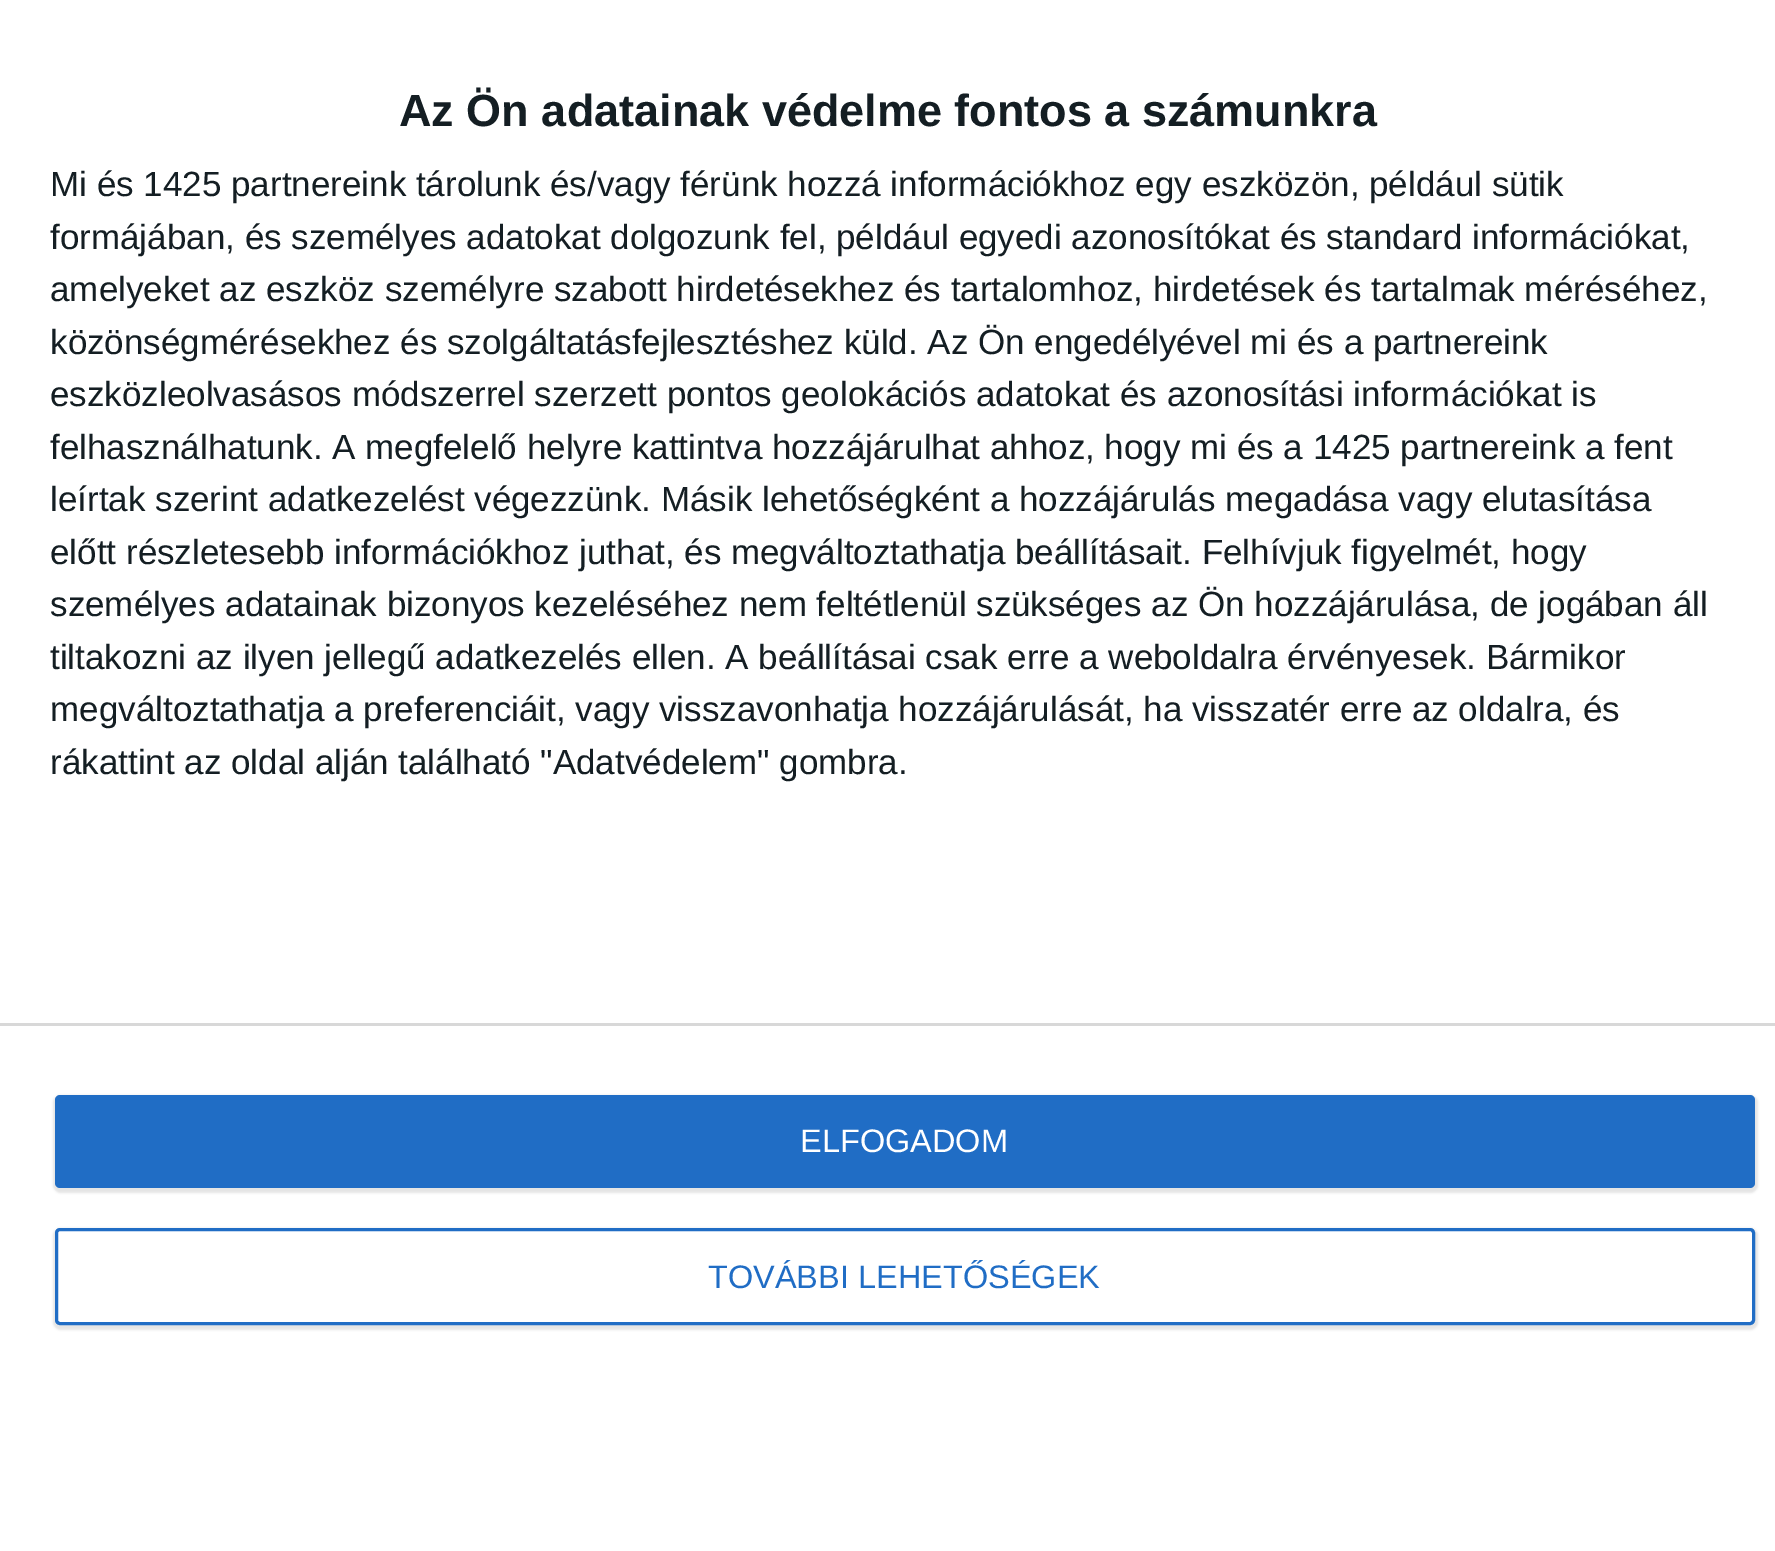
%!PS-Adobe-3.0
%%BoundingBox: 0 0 1775 1551
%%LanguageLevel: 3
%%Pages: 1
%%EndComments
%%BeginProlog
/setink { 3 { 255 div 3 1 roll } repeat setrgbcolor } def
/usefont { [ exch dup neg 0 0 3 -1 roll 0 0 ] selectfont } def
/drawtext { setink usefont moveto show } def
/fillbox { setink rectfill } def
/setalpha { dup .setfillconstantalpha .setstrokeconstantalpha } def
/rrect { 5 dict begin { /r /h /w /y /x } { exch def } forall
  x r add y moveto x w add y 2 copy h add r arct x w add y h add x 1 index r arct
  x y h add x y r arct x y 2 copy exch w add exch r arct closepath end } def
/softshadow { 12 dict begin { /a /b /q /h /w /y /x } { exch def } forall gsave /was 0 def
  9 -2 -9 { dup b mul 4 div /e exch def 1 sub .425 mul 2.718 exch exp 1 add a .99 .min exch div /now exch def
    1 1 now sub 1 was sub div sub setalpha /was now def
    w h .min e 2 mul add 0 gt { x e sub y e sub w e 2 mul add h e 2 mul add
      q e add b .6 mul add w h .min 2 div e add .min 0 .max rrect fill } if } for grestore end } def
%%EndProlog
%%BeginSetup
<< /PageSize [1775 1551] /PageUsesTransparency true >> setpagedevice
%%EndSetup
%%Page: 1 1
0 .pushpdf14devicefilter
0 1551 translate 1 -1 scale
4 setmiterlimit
0 0 1775 1551 255 255 255 fillbox
(Az Ön adatainak védelme fontos a számunkra) 399 126 /LiberationSans-Bold 45 20 30 35 drawtext
(Mi és 1425 partnereink tárolunk és/vagy férünk hozzá információkhoz egy eszközön, például sütik) 50 196 /LiberationSans-Regular 35 20 30 35 drawtext
(formájában, és személyes adatokat dolgozunk fel, például egyedi azonosítókat és standard információkat,) 50 249 /LiberationSans-Regular 35 20 30 35 drawtext
(amelyeket az eszköz személyre szabott hirdetésekhez és tartalomhoz, hirdetések és tartalmak méréséhez,) 50 301 /LiberationSans-Regular 35 20 30 35 drawtext
(közönségmérésekhez és szolgáltatásfejlesztéshez küld. Az Ön engedélyével mi és a partnereink) 50 354 /LiberationSans-Regular 35 20 30 35 drawtext
(eszközleolvasásos módszerrel szerzett pontos geolokációs adatokat és azonosítási információkat is) 50 406 /LiberationSans-Regular 35 20 30 35 drawtext
(felhasználhatunk. A megfelelő helyre kattintva hozzájárulhat ahhoz, hogy mi és a 1425 partnereink a fent) 50 459 /LiberationSans-Regular 35 20 30 35 drawtext
(leírtak szerint adatkezelést végezzünk. Másik lehetőségként a hozzájárulás megadása vagy elutasítása) 50 511 /LiberationSans-Regular 35 20 30 35 drawtext
(előtt részletesebb információkhoz juthat, és megváltoztathatja beállításait. Felhívjuk figyelmét, hogy) 50 564 /LiberationSans-Regular 35 20 30 35 drawtext
(személyes adatainak bizonyos kezeléséhez nem feltétlenül szükséges az Ön hozzájárulása, de jogában áll) 50 616 /LiberationSans-Regular 35 20 30 35 drawtext
(tiltakozni az ilyen jellegű adatkezelés ellen. A beállításai csak erre a weboldalra érvényesek. Bármikor) 50 669 /LiberationSans-Regular 35 20 30 35 drawtext
(megváltoztathatja a preferenciáit, vagy visszavonhatja hozzájárulását, ha visszatér erre az oldalra, és) 50 721 /LiberationSans-Regular 35 20 30 35 drawtext
(rákattint az oldal alján található "Adatvédelem" gombra.) 50 774 /LiberationSans-Regular 35 20 30 35 drawtext
0 1023 1775 3 216 216 216 fillbox
0 0 0 setink
53 1095 1705 98 8 1 0.1 softshadow
32 109 197 setink
55 1095 1700 93 5 rrect fill
(ELFOGADOM) 800 1152 /LiberationSans-Regular 32.5 255 255 255 drawtext
0 0 0 setink
53 1228 1705 102 8 1 0.1 softshadow
255 255 255 setink
56.5 1229.5 1697 94 3.5 rrect gsave fill grestore
32 109 197 setink
3 setlinewidth
stroke
gsave
708 1260 392 33 rectclip
(TOVÁBBI LEHETŐSÉGEK) 708 1288 /LiberationSans-Regular 32.5 32 109 197 drawtext
grestore
.poppdf14devicefilter showpage
%%EOF
